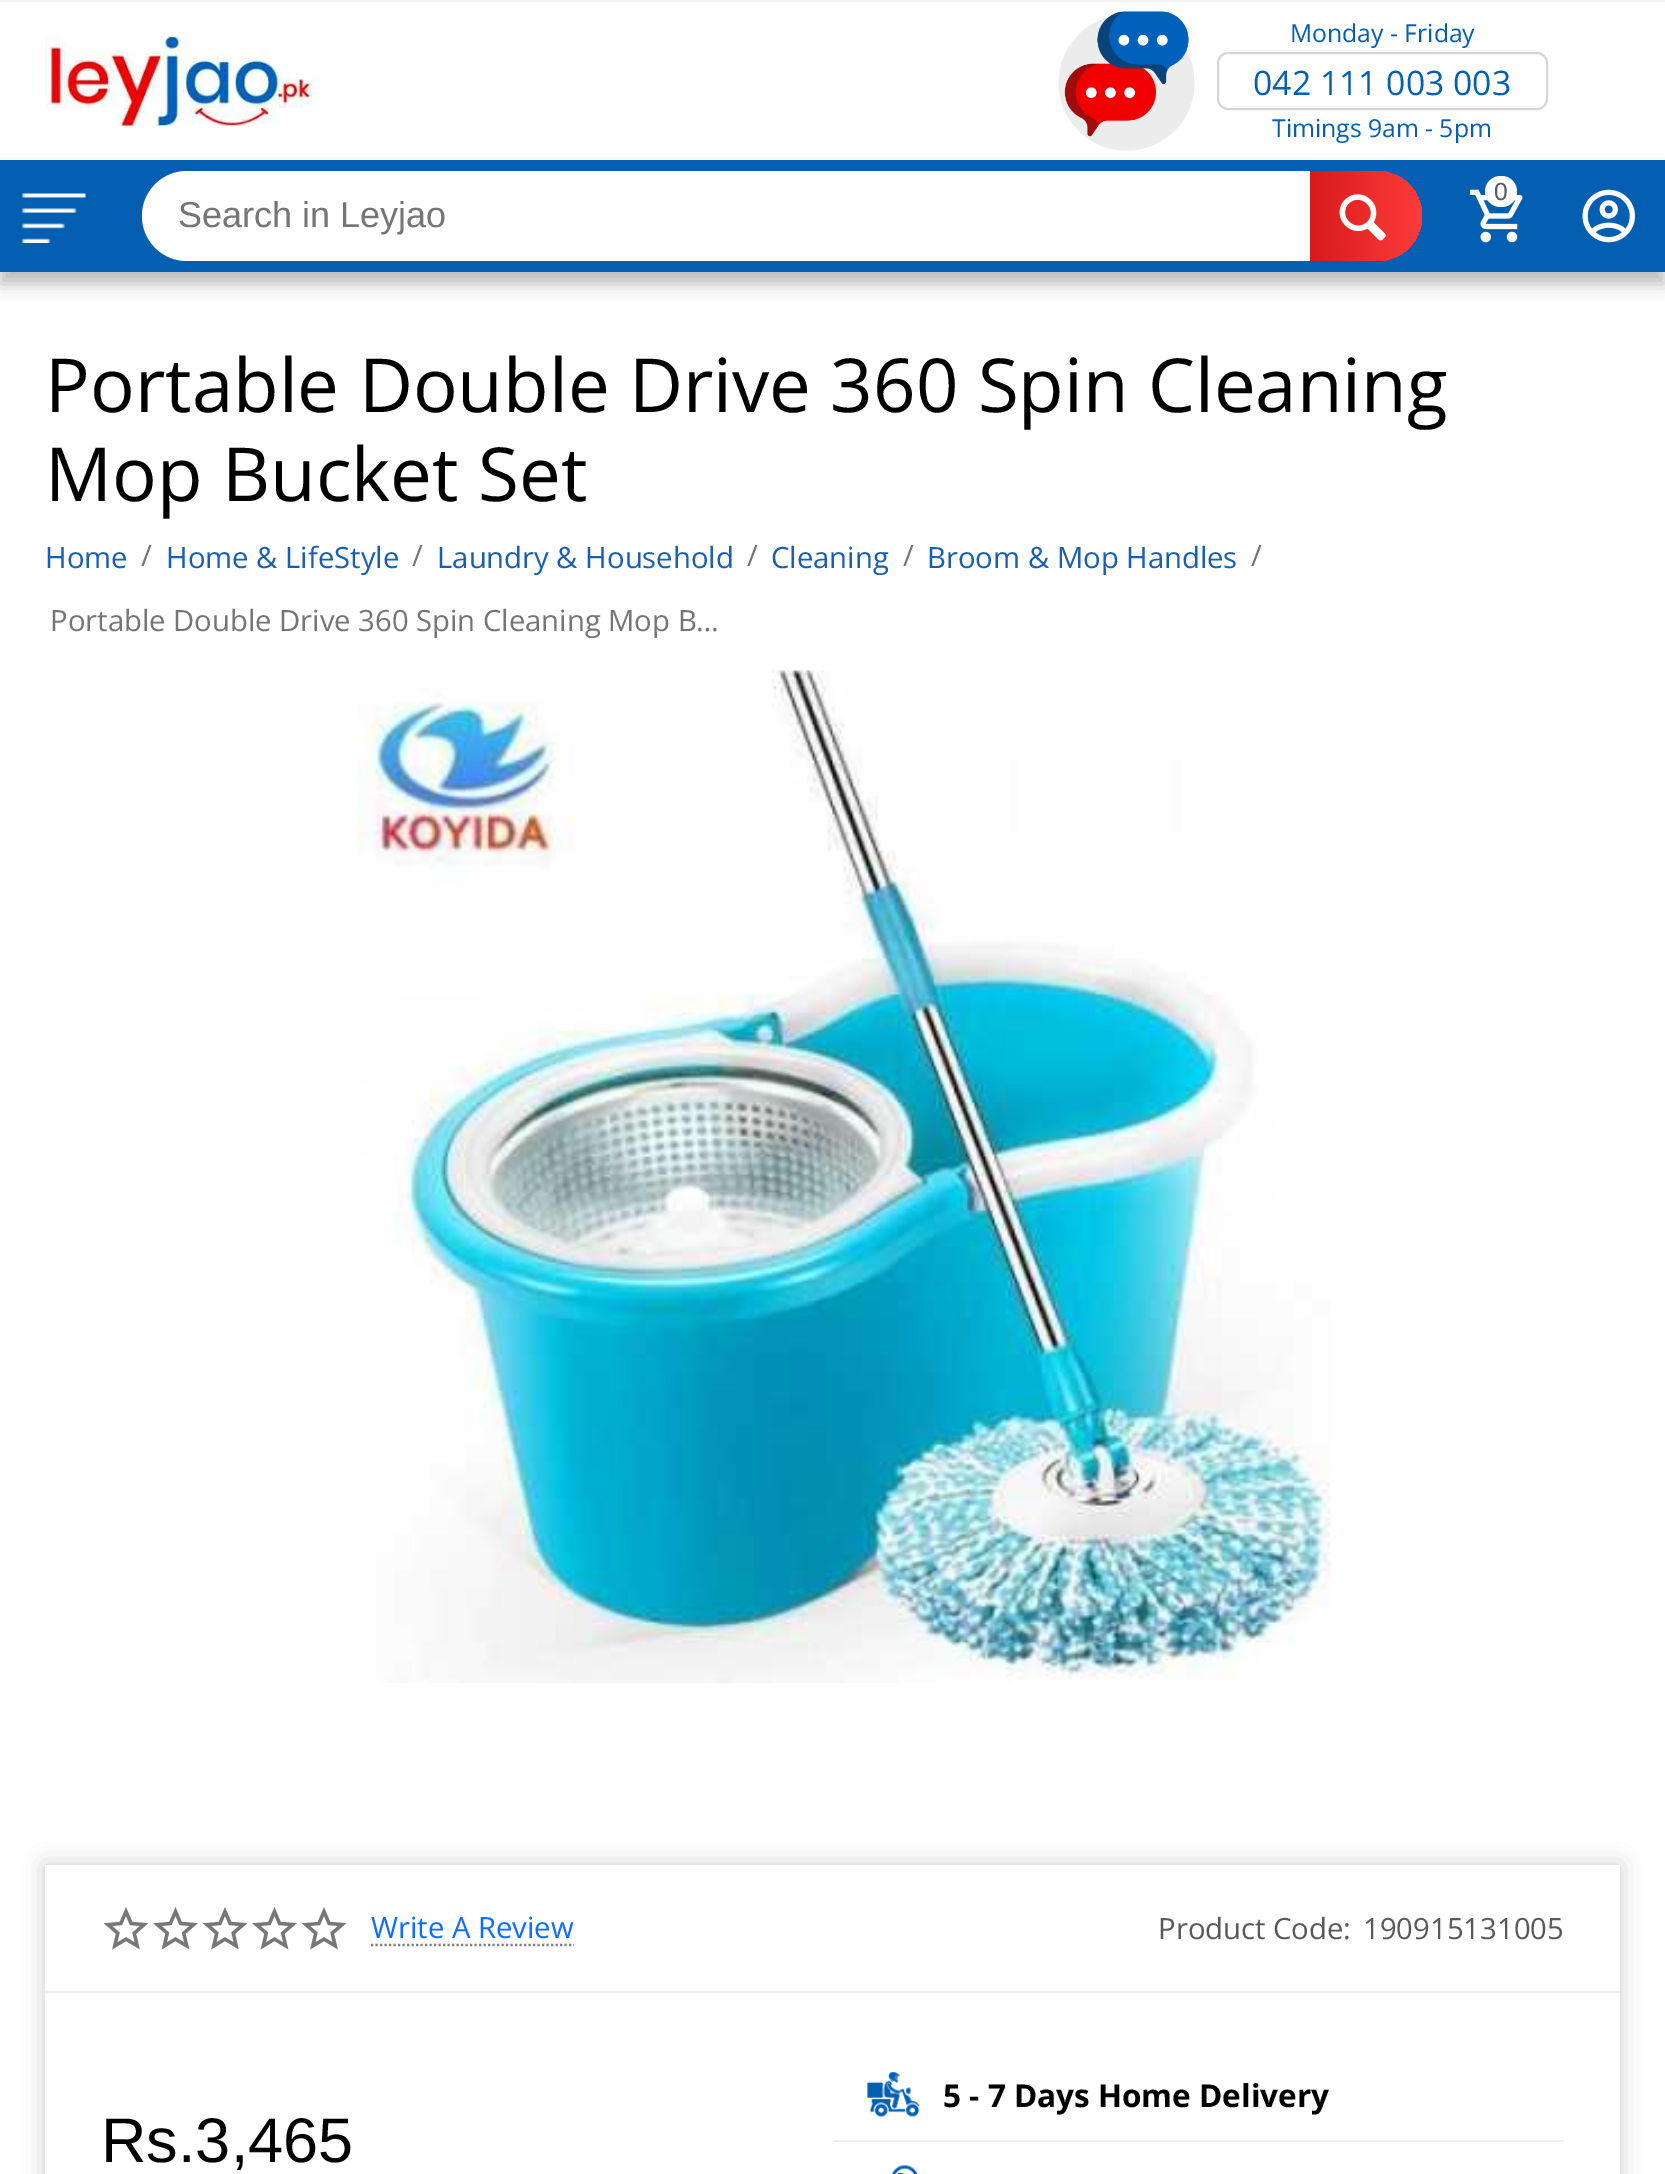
%!PS-Adobe-3.0
%%BoundingBox: 0 0 1665 2174
%%LanguageLevel: 3
%%Pages: 1
%%EndComments
%%BeginProlog
/setink { 3 { 255 div 3 1 roll } repeat setrgbcolor } def
/usefont { [ exch dup neg 0 0 3 -1 roll 0 0 ] selectfont } def
/drawtext { setink usefont moveto show } def
/fillbox { setink rectfill } def
/setalpha { dup .setfillconstantalpha .setstrokeconstantalpha } def
/rrect { 5 dict begin { /r /h /w /y /x } { exch def } forall
  x r add y moveto x w add y 2 copy h add r arct x w add y h add x 1 index r arct
  x y h add x y r arct x y 2 copy exch w add exch r arct closepath end } def
/softshadow { 12 dict begin { /a /b /q /h /w /y /x } { exch def } forall gsave /was 0 def
  9 -2 -9 { dup b mul 4 div /e exch def 1 sub .425 mul 2.718 exch exp 1 add a .99 .min exch div /now exch def
    1 1 now sub 1 was sub div sub setalpha /was now def
    w h .min e 2 mul add 0 gt { x e sub y e sub w e 2 mul add h e 2 mul add
      q e add b .6 mul add w h .min 2 div e add .min 0 .max rrect fill } if } for grestore end } def
/drawimage { 5 dict begin { /h /w /y /x /name } { exch def } forall
  gsave x y translate w h scale
  w h 8 [w 0 0 h 0 0] name (r) file false 3 colorimage grestore end } def
%%EndProlog
%%BeginSetup
<< /PageSize [1665 2174] /PageUsesTransparency true >> setpagedevice
%%EndSetup
%%Page: 1 1
0 .pushpdf14devicefilter
0 2174 translate 1 -1 scale
4 setmiterlimit
0 0 1665 2174 255 255 255 fillbox
0 0 1665 2 240 240 240 fillbox
(assets/img1.rgb) 45 36 270 90 drawimage
(assets/img2.rgb) 1058 11 137 140 drawimage
(Monday - Friday) 1290 42 /OpenSans-Regular 24.75 4 95 179 drawtext
214 214 214 setink
2 setlinewidth
1218 53 329 56 10 rrect stroke
(042 111 003 003) 1253 95 /OpenSans-Regular 33.75 4 95 179 drawtext
(Timings 9am - 5pm) 1272 137 /OpenSans-Regular 24.75 4 95 179 drawtext
0 0 0 setink
0 171 1665 113 0 8 0.26 softshadow
0 160 1665 112 4 95 179 fillbox
(assets/img3.rgb) 1470 189 53 54 drawimage
255 255 255 setink
1485 176 32 31 15.5 rrect fill
(0) 1494 200 /LiberationSans-Regular 24.75 89 89 89 drawtext
(assets/img4.rgb) 1582 189 53 54 drawimage
(assets/img5.rgb) 22 193 64 50 drawimage
255 255 255 setink
142 171 1269 90 45 rrect fill
(Search in Leyjao) 178 227 /LiberationSans-Regular 36 117 117 117 drawtext
gsave 1310 171 moveto 1377 171 lineto 1402 171 1422 191 1422 216 curveto 1422 241 1402 261 1377 261 curveto 1310 261 lineto closepath clip newpath
<< /ShadingType 2 /ColorSpace /DeviceRGB /Coords [1310 216 1422 216] /Extend [true true] /Function << /FunctionType 2 /Domain [0 1] /C0 [0.847 0.102 0.102] /C1 [1 0.235 0.235] /N 1 >> >> shfill grestore
(assets/img6.rgb) 1339 194 47 47 drawimage
(Portable Double Drive 360 Spin Cleaning) 45 412 /OpenSans-Regular 74.5 0 0 0 drawtext
(Mop Bucket Set) 45 501 /OpenSans-Regular 74.5 0 0 0 drawtext
(Home) 45 568 /OpenSans-Regular 29.25 24 95 179 drawtext
(/) 141 566 /OpenSans-Regular 29.25 117 117 117 drawtext
(Home & LifeStyle) 166 568 /OpenSans-Regular 29.25 24 95 179 drawtext
(/) 412 566 /OpenSans-Regular 29.25 117 117 117 drawtext
(Laundry & Household) 437 568 /OpenSans-Regular 29.25 24 95 179 drawtext
(/) 747 566 /OpenSans-Regular 29.25 117 117 117 drawtext
(Cleaning) 771 568 /OpenSans-Regular 29.25 24 95 179 drawtext
(/) 903 566 /OpenSans-Regular 29.25 117 117 117 drawtext
(Broom & Mop Handles) 927 568 /OpenSans-Regular 29.25 24 95 179 drawtext
(/) 1251 566 /OpenSans-Regular 29.25 117 117 117 drawtext
(Portable Double Drive 360 Spin Cleaning Mop B…) 50 631 /OpenSans-Regular 29.25 117 117 117 drawtext
(assets/img7.rgb) 357 670 974 1013 drawimage
0 0 0 setink
45 1865 1575 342 0 11 0.2 softshadow
45 1865 1575 309 255 255 255 fillbox
45 1991 1575 2 240 240 240 fillbox
(assets/img8.rgb) 103 1907 46 43 drawimage
(assets/img9.rgb) 153 1907 45 43 drawimage
(assets/img8.rgb) 202 1907 46 43 drawimage
(assets/img9.rgb) 252 1907 45 43 drawimage
(assets/img8.rgb) 301 1907 46 43 drawimage
126 126 126 setink
2.2 setlinewidth
[2.25 2.25] 0 setdash
371 1945 moveto 574 1945 lineto stroke
(Write A Review) 371 1938 /OpenSans-Regular 29.25 13 110 253 drawtext
(Product Code:) 1158 1939 /OpenSans-Regular 29.25 89 89 89 drawtext
(190915131005) 1363 1939 /OpenSans-Regular 29.25 89 89 89 drawtext
833 2140 731 2 238 238 238 fillbox
(assets/img10.rgb) 867 2072 53 45 drawimage
(5 - 7 Days Home Delivery) 943 2107 /OpenSans-Bold 31.5 0 0 0 drawtext
(assets/img11.rgb) 892 2165 26 9 drawimage
(Rs.3,465) 101 2162 /LiberationSans-Regular 63 0 0 0 drawtext
.poppdf14devicefilter showpage
%%EOF
